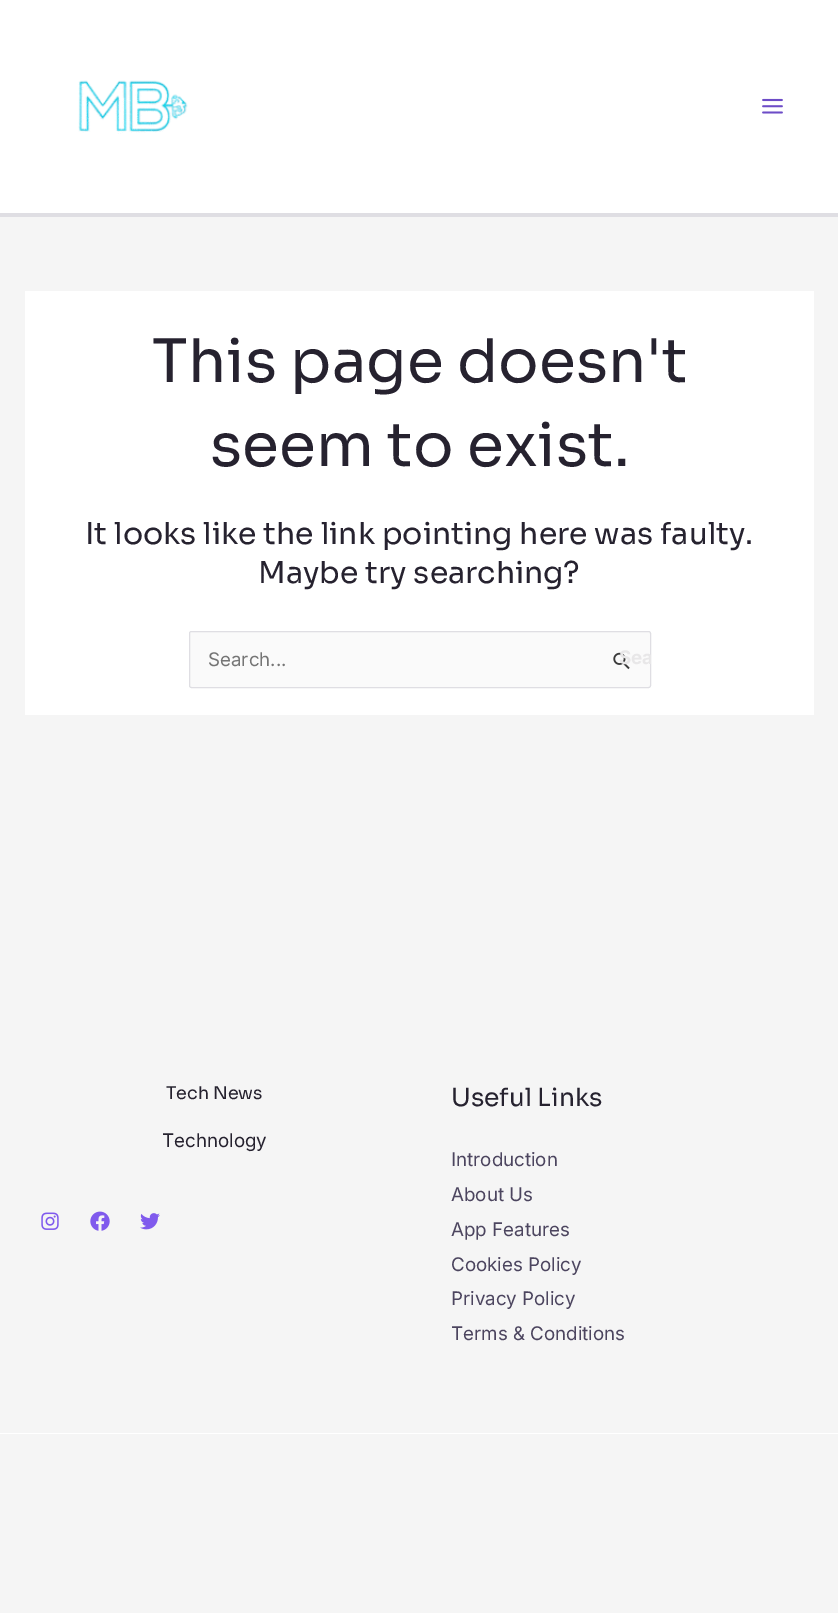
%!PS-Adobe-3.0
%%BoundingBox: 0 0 838 1613
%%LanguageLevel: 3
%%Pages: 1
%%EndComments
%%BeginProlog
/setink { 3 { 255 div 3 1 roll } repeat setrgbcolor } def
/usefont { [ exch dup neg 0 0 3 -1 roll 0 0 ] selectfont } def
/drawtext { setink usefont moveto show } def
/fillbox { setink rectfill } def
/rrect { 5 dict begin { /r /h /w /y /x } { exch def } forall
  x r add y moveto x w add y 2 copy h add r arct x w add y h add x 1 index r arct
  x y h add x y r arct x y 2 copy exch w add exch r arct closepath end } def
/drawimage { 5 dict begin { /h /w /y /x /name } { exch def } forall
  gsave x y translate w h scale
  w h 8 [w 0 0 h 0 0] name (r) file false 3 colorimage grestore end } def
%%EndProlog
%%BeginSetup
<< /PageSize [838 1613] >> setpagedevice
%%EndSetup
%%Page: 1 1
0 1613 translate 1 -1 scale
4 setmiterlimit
0 0 838 1613 245 245 245 fillbox
0 0 838 213 255 255 255 fillbox
0 213 838 4 223 222 227 fillbox
(assets/img1.rgb) 78 80 110 54 drawimage
(assets/img2.rgb) 762 98 21 16 drawimage
25 291 789 424 255 255 255 fillbox
(This page doesn't) 152 382 /Sora-Regular 60 38 34 47 drawtext
(seem to exist.) 210 466 /Sora-Regular 60 38 34 47 drawtext
(It looks like the link pointing here was faulty.) 85 544 /Sora-Regular 30 38 34 47 drawtext
(Maybe try searching?) 258 583 /Sora-Regular 30 38 34 47 drawtext
250 250 250 setink
189.5 631.5 461 56 2 rrect gsave fill grestore
223 222 227 setink
stroke
(Search...) 208 666 /Inter-Regular 18.75 117 117 117 drawtext
(assets/img3.rgb) 613 652 17 18 drawimage
gsave
595 631 56 52 2.5 rrect clip newpath
(Sea) 619 664 /Inter-Bold 18.75 232 231 232 drawtext
grestore
(Tech News) 166 1099 /Sora-Regular 17.5 38 34 47 drawtext
(Technology) 162 1147 /Inter-Regular 18.75 38 34 47 drawtext
(assets/img4.rgb) 41 1212 18 18 drawimage
(assets/img5.rgb) 90 1211 20 20 drawimage
(assets/img6.rgb) 140 1213 20 17 drawimage
(Useful Links) 451 1106 /Sora-Regular 25 38 34 47 drawtext
(Introduction) 451 1166 /Inter-Regular 18.75 76 69 95 drawtext
(About Us) 451 1201 /Inter-Regular 18.75 76 69 95 drawtext
(App Features) 451 1236 /Inter-Regular 18.75 76 69 95 drawtext
(Cookies Policy) 451 1271 /Inter-Regular 18.75 76 69 95 drawtext
(Privacy Policy) 451 1305 /Inter-Regular 18.75 76 69 95 drawtext
(Terms & Conditions) 451 1340 /Inter-Regular 18.75 76 69 95 drawtext
0 1433 838 1 255 255 255 fillbox
showpage
%%EOF
